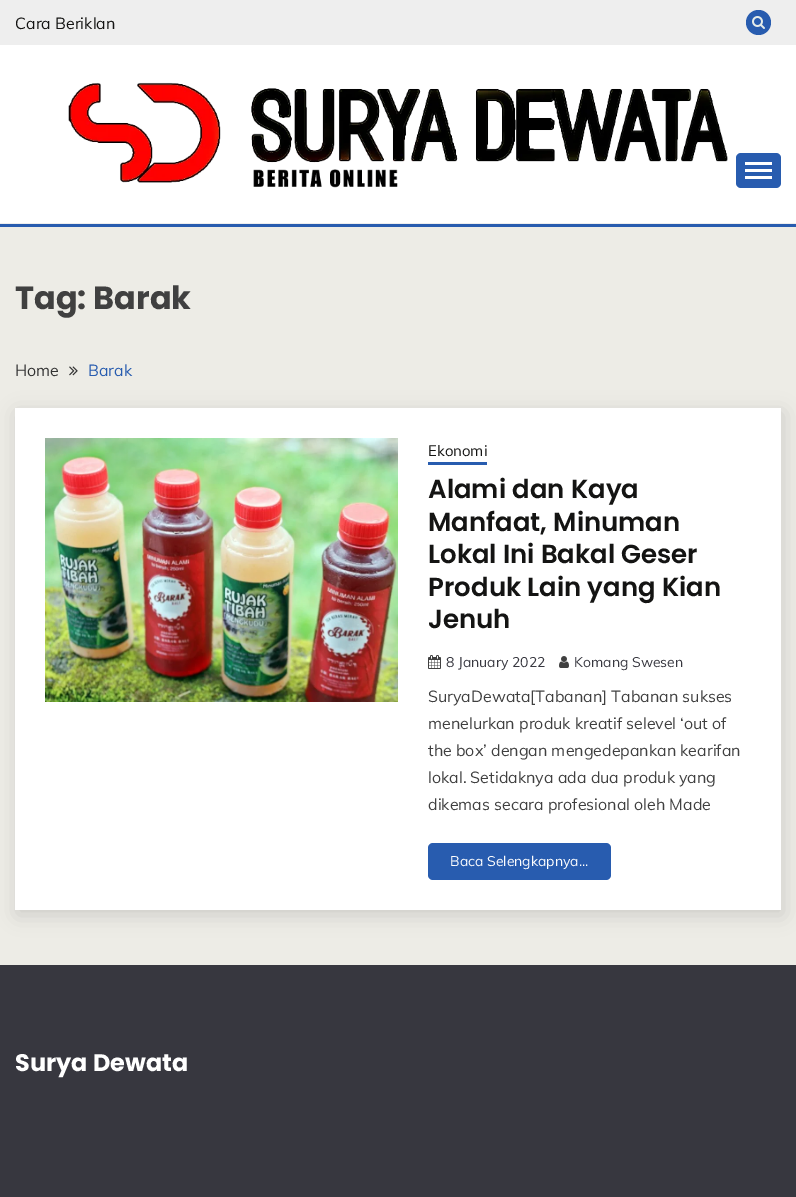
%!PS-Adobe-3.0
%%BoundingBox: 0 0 796 1197
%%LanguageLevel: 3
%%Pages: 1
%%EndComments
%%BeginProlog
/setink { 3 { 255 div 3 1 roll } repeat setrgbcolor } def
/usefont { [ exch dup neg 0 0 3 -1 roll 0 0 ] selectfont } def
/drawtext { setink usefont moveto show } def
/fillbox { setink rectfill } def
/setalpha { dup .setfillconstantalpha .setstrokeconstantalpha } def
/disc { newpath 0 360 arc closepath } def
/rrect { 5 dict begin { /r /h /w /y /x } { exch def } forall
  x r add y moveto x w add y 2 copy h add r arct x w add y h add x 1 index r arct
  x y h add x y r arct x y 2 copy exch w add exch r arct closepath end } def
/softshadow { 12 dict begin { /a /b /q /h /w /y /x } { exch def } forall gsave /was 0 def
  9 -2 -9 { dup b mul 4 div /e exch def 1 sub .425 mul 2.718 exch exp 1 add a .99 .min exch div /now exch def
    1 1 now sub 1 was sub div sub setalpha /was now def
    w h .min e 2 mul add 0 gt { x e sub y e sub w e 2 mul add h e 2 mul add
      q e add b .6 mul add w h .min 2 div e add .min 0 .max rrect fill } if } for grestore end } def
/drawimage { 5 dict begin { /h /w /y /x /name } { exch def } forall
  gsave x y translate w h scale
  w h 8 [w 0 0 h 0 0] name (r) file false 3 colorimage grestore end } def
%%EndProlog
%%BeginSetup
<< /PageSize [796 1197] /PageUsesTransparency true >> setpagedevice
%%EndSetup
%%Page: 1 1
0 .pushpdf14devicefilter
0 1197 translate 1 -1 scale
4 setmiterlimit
0 0 796 1197 237 236 230 fillbox
0 45 796 178 255 255 255 fillbox
0 0 796 45 238 238 238 fillbox
(Cara Beriklan) 15 29 /Muli-Regular 16 20 20 19 drawtext
40 92 175 setink
758.5 22.5 12.5 disc fill
(assets/img1.rgb) 752 16 13 13 drawimage
0 223 796 1 238 238 238 fillbox
(assets/img2.rgb) 68 82 660 106 drawimage
40 92 175 setink
736 153 45 35 5 rrect fill
745 162 27 3 255 255 255 fillbox
745 169 27 3 255 255 255 fillbox
745 176 27 3 255 255 255 fillbox
0 224 796 3 40 92 175 fillbox
(Tag: Barak) 15 309 /Poppins-Bold 32 64 64 64 drawtext
(Home) 15 376 /Muli-Regular 16 51 51 51 drawtext
(assets/img3.rgb) 69 366 9 10 drawimage
(Barak) 88 376 /Muli-Regular 16 40 92 175 drawtext
0 0 0 setink
17 413 766 502 0 10 0.14 softshadow
15 408 766 502 255 255 255 fillbox
(assets/img4.rgb) 45 438 353 264 drawimage
(Ekonomi) 428 456 /Muli-Regular 15 20 20 19 drawtext
428 462 59 3 40 92 175 fillbox
(Alami dan Kaya) 428 498 /Poppins-SemiBold 26 20 20 19 drawtext
(Manfaat, Minuman) 428 531 /Poppins-SemiBold 26 20 20 19 drawtext
(Lokal Ini Bakal Geser) 428 563 /Poppins-SemiBold 26 20 20 19 drawtext
(Produk Lain yang Kian) 428 596 /Poppins-SemiBold 26 20 20 19 drawtext
(Jenuh) 428 628 /Poppins-SemiBold 26 20 20 19 drawtext
(assets/img5.rgb) 428 655 13 14 drawimage
(8 January 2022) 446 667 /Muli-Regular 14 55 55 63 drawtext
(assets/img6.rgb) 559 656 10 12 drawimage
(Komang Swesen) 574 667 /Muli-Regular 14 55 55 63 drawtext
(SuryaDewata[Tabanan] Tabanan sukses) 428 702 /Muli-Regular 16 64 64 64 drawtext
(menelurkan produk kreatif selevel ‘out of) 428 729 /Muli-Regular 16 64 64 64 drawtext
(the box’ dengan mengedepankan kearifan) 428 756 /Muli-Regular 16 64 64 64 drawtext
(lokal. Setidaknya ada dua produk yang) 428 783 /Muli-Regular 16 64 64 64 drawtext
(dikemas secara profesional oleh Made) 428 810 /Muli-Regular 16 64 64 64 drawtext
40 92 175 setink
428 843 183 37 5 rrect fill
(Baca Selengkapnya...) 450 866 /Muli-Regular 14 255 255 255 drawtext
0 965 796 232 55 55 63 fillbox
(Surya Dewata) 15 1071 /Poppins-Bold 24 255 255 255 drawtext
.poppdf14devicefilter showpage
%%EOF
